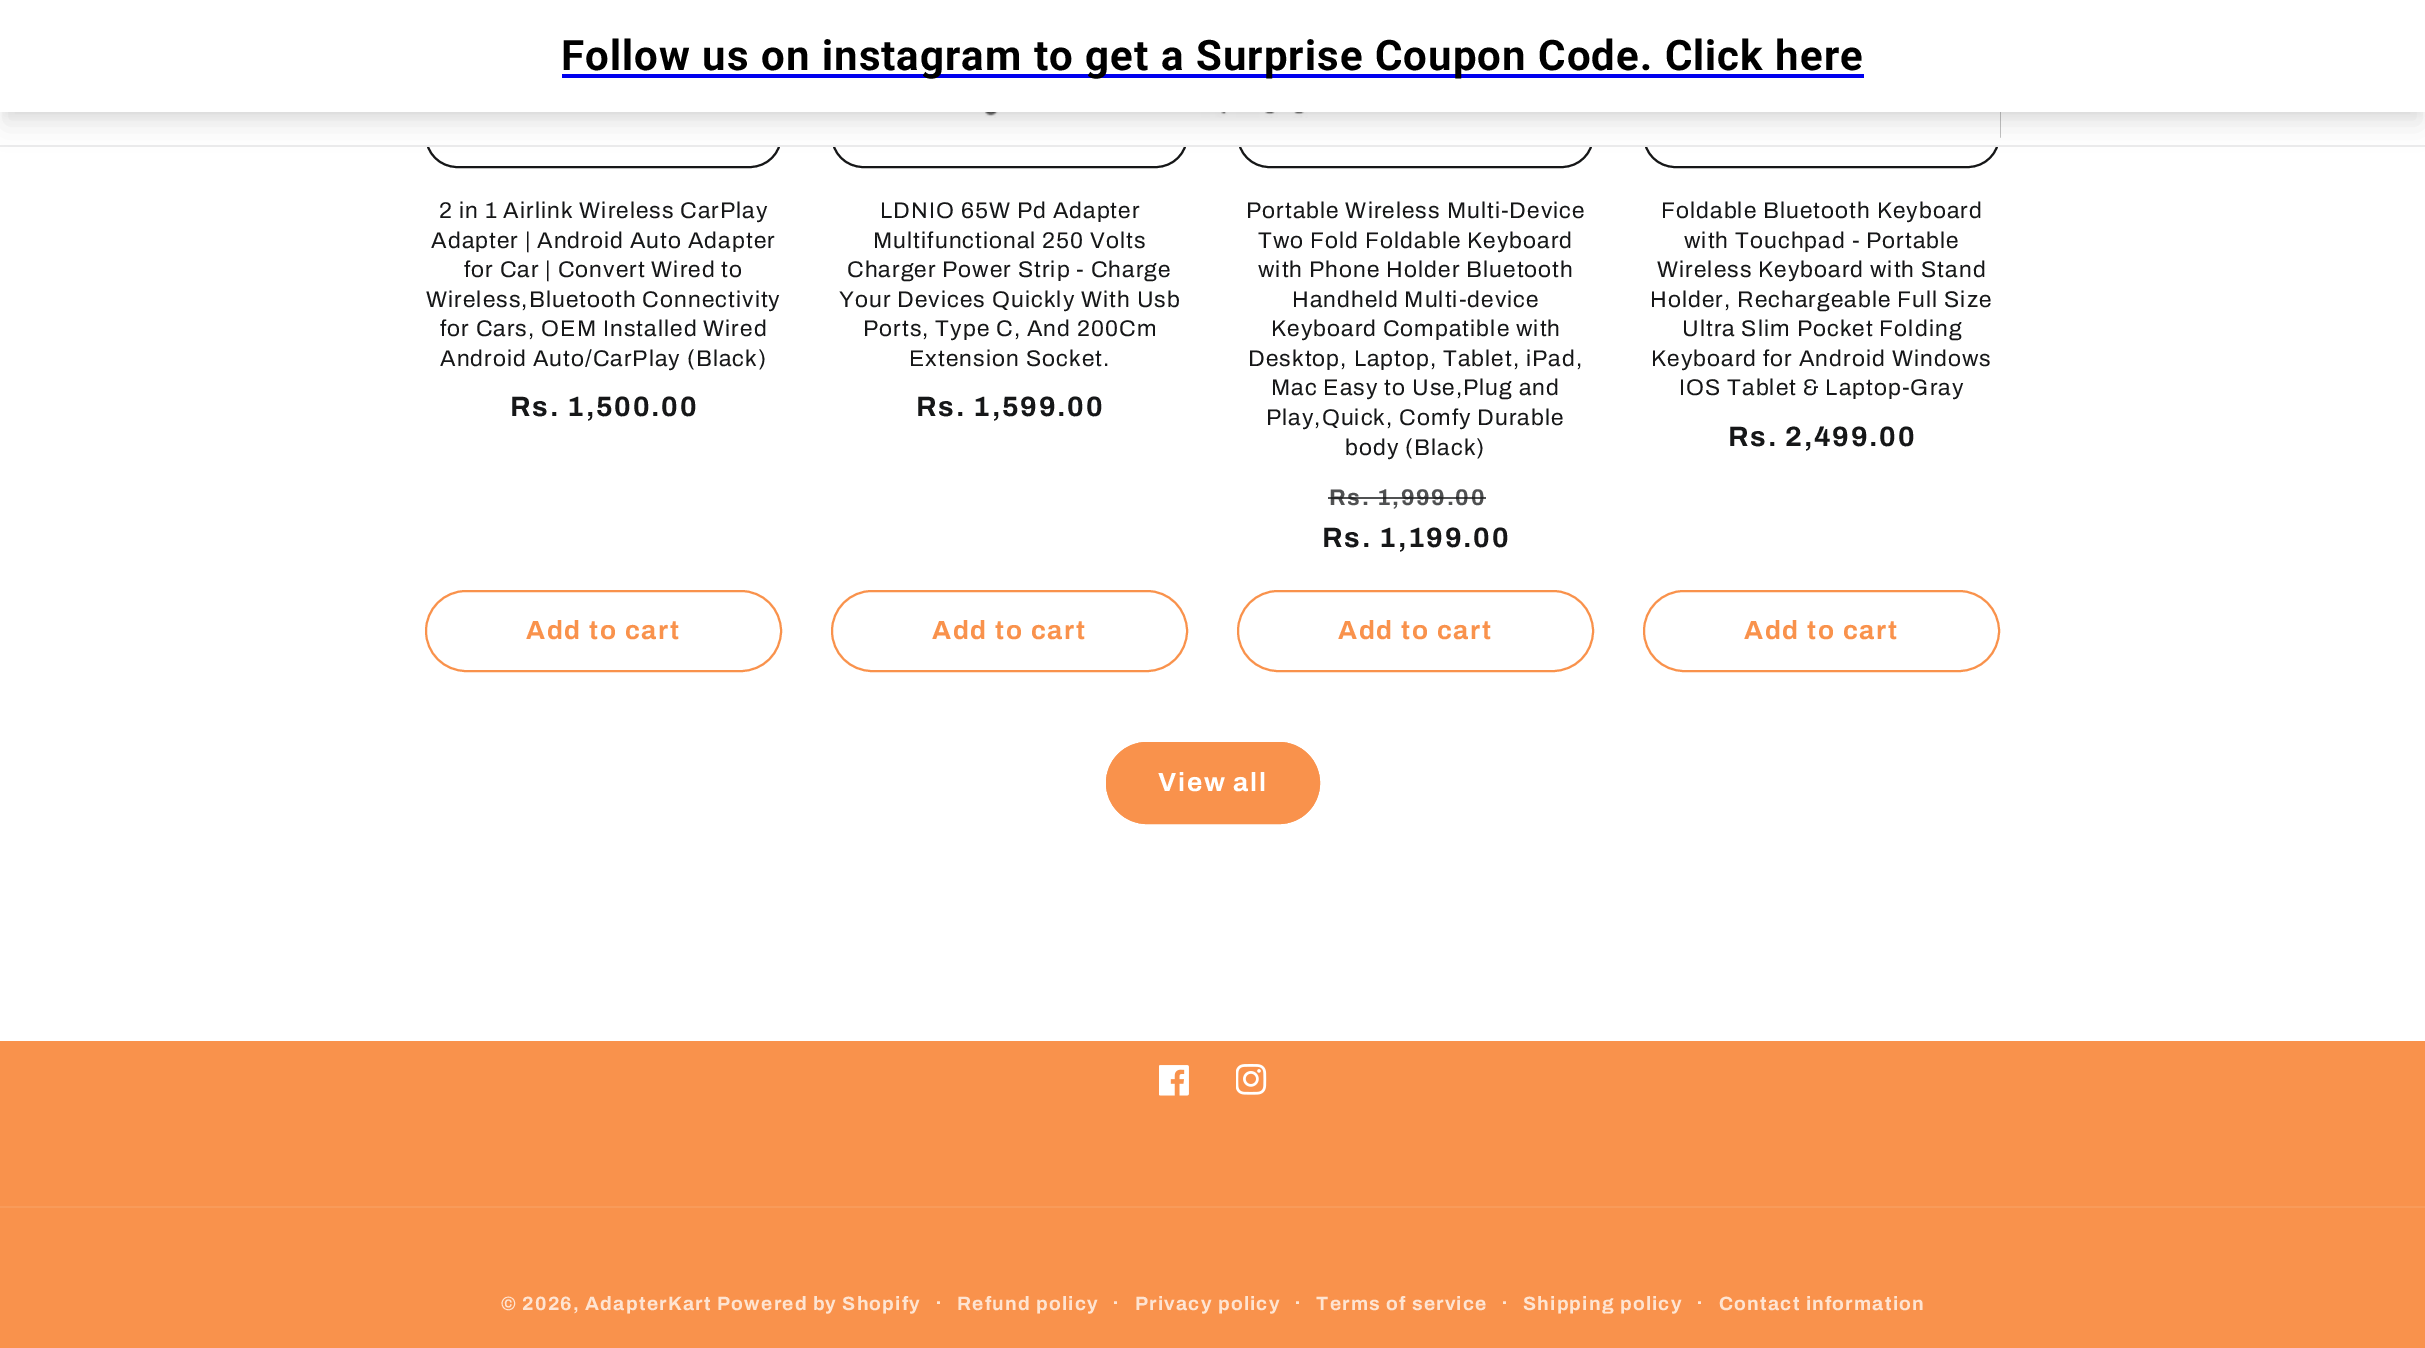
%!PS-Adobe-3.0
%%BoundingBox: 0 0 2425 1348
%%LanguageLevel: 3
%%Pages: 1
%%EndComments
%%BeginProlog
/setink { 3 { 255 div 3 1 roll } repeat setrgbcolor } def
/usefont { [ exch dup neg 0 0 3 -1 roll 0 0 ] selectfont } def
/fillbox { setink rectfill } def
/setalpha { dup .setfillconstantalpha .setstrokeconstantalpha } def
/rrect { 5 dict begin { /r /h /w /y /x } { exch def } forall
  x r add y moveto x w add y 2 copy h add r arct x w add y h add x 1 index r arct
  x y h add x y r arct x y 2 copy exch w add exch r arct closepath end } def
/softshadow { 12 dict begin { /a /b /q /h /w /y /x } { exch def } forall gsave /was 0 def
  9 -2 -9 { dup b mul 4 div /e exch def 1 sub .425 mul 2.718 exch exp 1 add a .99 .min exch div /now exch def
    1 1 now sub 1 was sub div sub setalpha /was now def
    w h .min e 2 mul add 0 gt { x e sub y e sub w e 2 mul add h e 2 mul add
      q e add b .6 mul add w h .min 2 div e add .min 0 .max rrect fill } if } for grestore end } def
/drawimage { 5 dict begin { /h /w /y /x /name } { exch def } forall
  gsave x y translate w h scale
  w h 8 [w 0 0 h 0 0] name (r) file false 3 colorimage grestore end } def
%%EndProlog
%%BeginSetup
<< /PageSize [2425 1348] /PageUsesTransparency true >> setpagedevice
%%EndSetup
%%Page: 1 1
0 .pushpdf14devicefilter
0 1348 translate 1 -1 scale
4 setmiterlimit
0 0 2425 1348 255 255 255 fillbox
22 23 24 setink
2 setlinewidth
426 -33 355 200 31 rrect stroke
832 -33 355 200 31 rrect stroke
1238 -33 355 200 31 rrect stroke
1644 -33 355 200 31 rrect stroke
425 112 1575 33 255 255 255 fillbox
(assets/img1.rgb) 983 112 458 6 drawimage
0 0 0 setink
4 11 2418 105 0 5 0.05 softshadow
0 145 2425 2 236 236 237 fillbox
0 0 0 setink
5 23 2415 101 0 13 0.1 softshadow
0 0 2425 112 255 255 255 fillbox
562 74 1302 4 0 0 238 fillbox
/Roboto-Bold 42 usefont
0 0 0 setink
561 70 moveto 1.05 0 (Follow us on instagram to get a Surprise Coupon Code. Click here) ashow
/Archivo-Regular 22.75 usefont
22 23 24 setink
439 218 moveto 1.05 0 (2 in 1 Airlink Wireless CarPlay) ashow
431 248 moveto 1.05 0 (Adapter | Android Auto Adapter) ashow
464 277 moveto 1.05 0 (for Car | Convert Wired to) ashow
426 307 moveto 1.05 0 (Wireless,Bluetooth Connectivity) ashow
440 336 moveto 1.05 0 (for Cars, OEM Installed Wired) ashow
440 366 moveto 1.05 0 (Android Auto/CarPlay \(Black\)) ashow
/Archivo-Bold 28 usefont
510 416 moveto 1.75 0 (Rs. 1,500.00) ashow
249 146 76 setink
426 591 355 80 40 rrect stroke
/Archivo-Bold 26.25 usefont
526 639 moveto 1.75 0 (Add to cart) ashow
/Archivo-Regular 22.75 usefont
22 23 24 setink
880 218 moveto 1.05 0 (LDNIO 65W Pd Adapter) ashow
873 248 moveto 1.05 0 (Multifunctional 250 Volts) ashow
847 277 moveto 1.05 0 (Charger Power Strip - Charge) ashow
839 307 moveto 1.05 0 (Your Devices Quickly With Usb) ashow
863 336 moveto 1.05 0 (Ports, Type C, And 200Cm) ashow
909 366 moveto 1.05 0 (Extension Socket.) ashow
/Archivo-Bold 28 usefont
916 416 moveto 1.75 0 (Rs. 1,599.00) ashow
249 146 76 setink
832 591 355 80 40 rrect stroke
/Archivo-Bold 26.25 usefont
932 639 moveto 1.75 0 (Add to cart) ashow
/Archivo-Regular 22.75 usefont
22 23 24 setink
1246 218 moveto 1.05 0 (Portable Wireless Multi-Device) ashow
1258 248 moveto 1.05 0 (Two Fold Foldable Keyboard) ashow
1258 277 moveto 1.05 0 (with Phone Holder Bluetooth) ashow
1292 307 moveto 1.05 0 (Handheld Multi-device) ashow
1271 336 moveto 1.05 0 (Keyboard Compatible with) ashow
1248 366 moveto 1.05 0 (Desktop, Laptop, Tablet, iPad,) ashow
1271 395 moveto 1.05 0 (Mac Easy to Use,Plug and) ashow
1266 425 moveto 1.05 0 (Play,Quick, Comfy Durable) ashow
1345 455 moveto 1.05 0 (body \(Black\)) ashow
/Archivo-Bold 22.75 usefont
80 81 82 setink
1329 505 moveto 1.75 0 (Rs. 1,999.00) ashow
0.75 setalpha
1328 497 158 2 22 23 24 fillbox
/Archivo-Bold 28 usefont
1 setalpha
1322 547 moveto 1.75 0 (Rs. 1,199.00) ashow
249 146 76 setink
1238 591 355 80 40 rrect stroke
/Archivo-Bold 26.25 usefont
1338 639 moveto 1.75 0 (Add to cart) ashow
/Archivo-Regular 22.75 usefont
22 23 24 setink
1661 218 moveto 1.05 0 (Foldable Bluetooth Keyboard) ashow
1684 248 moveto 1.05 0 (with Touchpad - Portable) ashow
1657 277 moveto 1.05 0 (Wireless Keyboard with Stand) ashow
1650 307 moveto 1.05 0 (Holder, Rechargeable Full Size) ashow
1682 336 moveto 1.05 0 (Ultra Slim Pocket Folding) ashow
1651 366 moveto 1.05 0 (Keyboard for Android Windows) ashow
1679 395 moveto 1.05 0 (IOS Tablet & Laptop-Gray) ashow
/Archivo-Bold 28 usefont
1728 446 moveto 1.75 0 (Rs. 2,499.00) ashow
249 146 76 setink
1644 591 355 80 40 rrect stroke
/Archivo-Bold 26.25 usefont
1744 639 moveto 1.75 0 (Add to cart) ashow
1106 742 214 82 41 rrect fill
1107 743 212 80 40 rrect stroke
255 255 255 setink
1158 791 moveto 1.75 0 (View all) ashow
0 1041 2425 307 249 146 76 fillbox
(assets/img2.rgb) 1159 1065 30 31 drawimage
(assets/img3.rgb) 1236 1064 31 31 drawimage
0 1206 2425 2 249 155 90 fillbox
/Archivo-Bold 19.25 usefont
254 228 210 setink
501 1310 moveto 1.25 0 (© 2026, AdapterKart) ashow
717 1310 moveto 1.25 0 (Powered by Shopify) ashow
/Archivo-Bold 21 usefont
935 1310 moveto 1.25 0 (·) ashow
/Archivo-Bold 19.25 usefont
957 1310 moveto 1.25 0 (Refund policy) ashow
/Archivo-Bold 21 usefont
1112 1310 moveto 1.25 0 (·) ashow
/Archivo-Bold 19.25 usefont
1135 1310 moveto 1.25 0 (Privacy policy) ashow
/Archivo-Bold 21 usefont
1294 1310 moveto 1.25 0 (·) ashow
/Archivo-Bold 19.25 usefont
1316 1310 moveto 1.25 0 (Terms of service) ashow
/Archivo-Bold 21 usefont
1501 1310 moveto 1.25 0 (·) ashow
/Archivo-Bold 19.25 usefont
1523 1310 moveto 1.25 0 (Shipping policy) ashow
/Archivo-Bold 21 usefont
1696 1310 moveto 1.25 0 (·) ashow
/Archivo-Bold 19.25 usefont
1719 1310 moveto 1.25 0 (Contact information) ashow
.poppdf14devicefilter showpage
%%EOF
